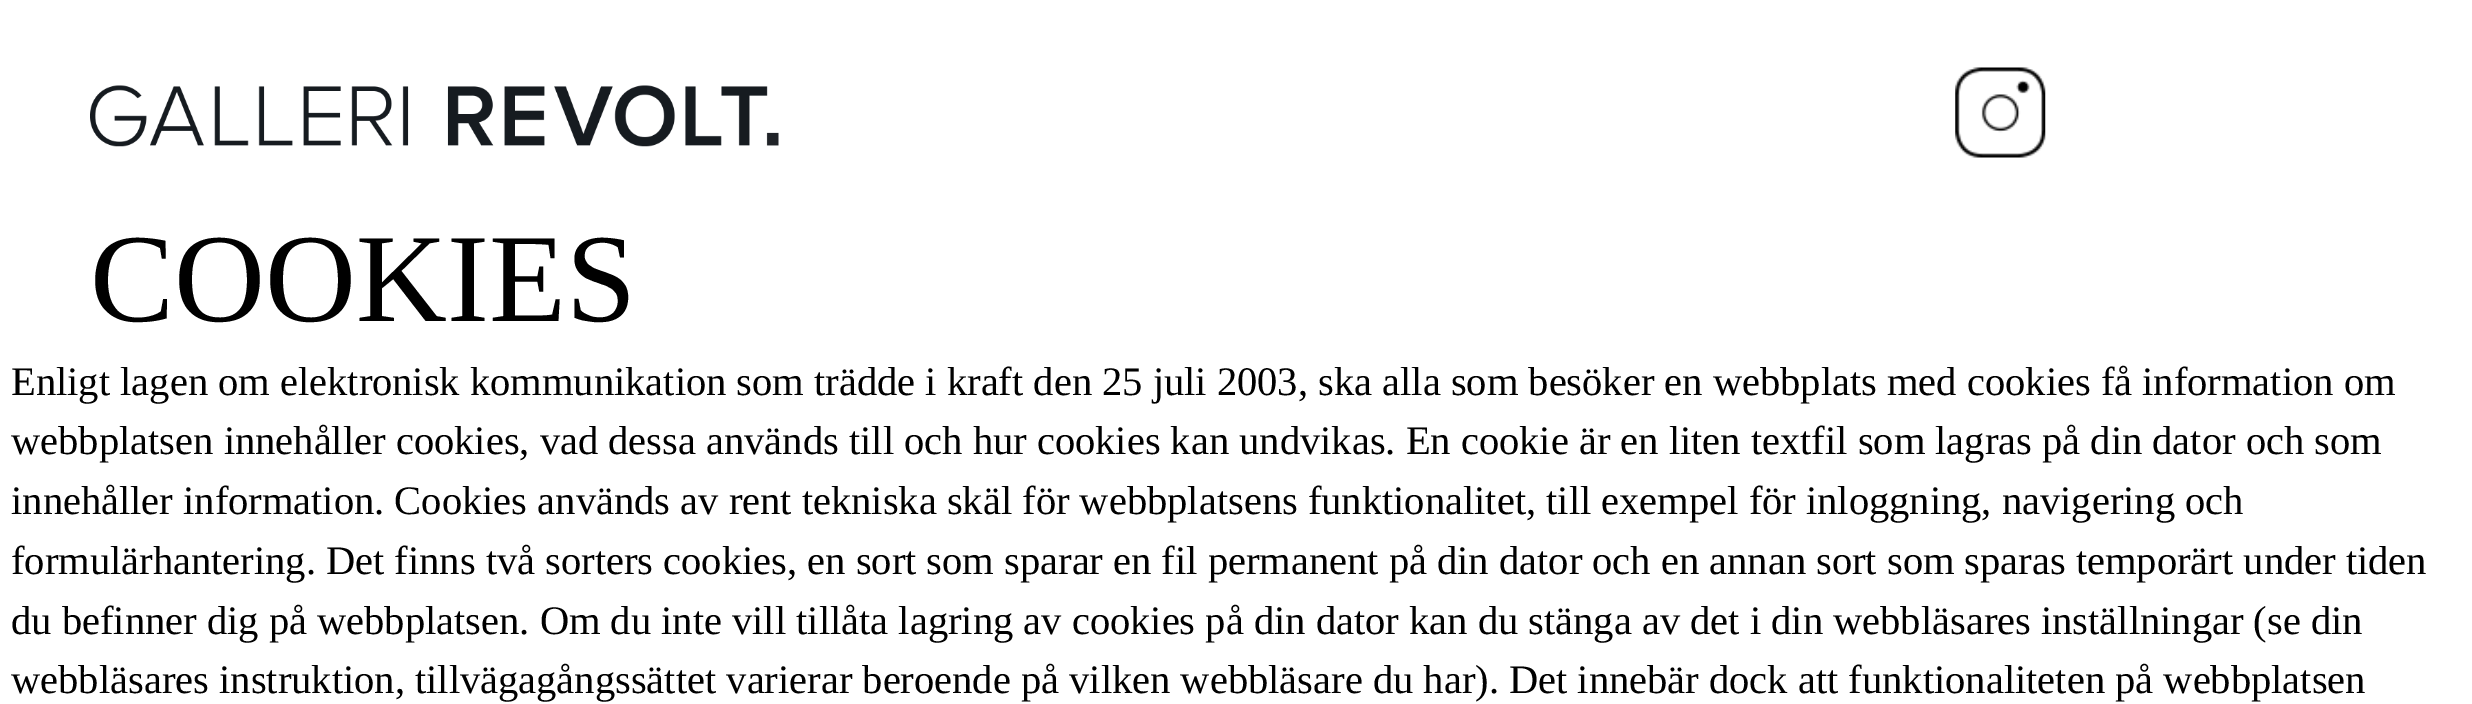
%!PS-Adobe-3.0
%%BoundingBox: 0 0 2472 704
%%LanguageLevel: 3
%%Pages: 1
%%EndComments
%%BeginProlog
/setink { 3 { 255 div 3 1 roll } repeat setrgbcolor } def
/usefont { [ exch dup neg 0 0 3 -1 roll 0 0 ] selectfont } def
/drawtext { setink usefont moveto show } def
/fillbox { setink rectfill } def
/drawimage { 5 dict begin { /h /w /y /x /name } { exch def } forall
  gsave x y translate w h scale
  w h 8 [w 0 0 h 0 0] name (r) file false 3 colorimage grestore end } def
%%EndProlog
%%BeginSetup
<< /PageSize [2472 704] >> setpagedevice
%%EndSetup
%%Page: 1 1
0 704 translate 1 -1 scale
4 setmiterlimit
0 0 2472 704 255 255 255 fillbox
(assets/img1.rgb) 90 85 689 62 drawimage
(assets/img2.rgb) 1955 67 91 91 drawimage
(COOKIES) 90 321 /LiberationSerif-Regular 126 0 0 0 drawtext
(Enligt lagen om elektronisk kommunikation som trädde i kraft den 25 juli 2003, ska alla som besöker en webbplats med cookies få information om) 11 395 /LiberationSerif-Regular 40.5 0 0 0 drawtext
(webbplatsen innehåller cookies, vad dessa används till och hur cookies kan undvikas. En cookie är en liten textfil som lagras på din dator och som) 11 454 /LiberationSerif-Regular 40.5 0 0 0 drawtext
(innehåller information. Cookies används av rent tekniska skäl för webbplatsens funktionalitet, till exempel för inloggning, navigering och) 11 514 /LiberationSerif-Regular 40.5 0 0 0 drawtext
(formulärhantering. Det finns två sorters cookies, en sort som sparar en fil permanent på din dator och en annan sort som sparas temporärt under tiden) 11 574 /LiberationSerif-Regular 40.5 0 0 0 drawtext
(du befinner dig på webbplatsen. Om du inte vill tillåta lagring av cookies på din dator kan du stänga av det i din webbläsares inställningar \(se din) 11 634 /LiberationSerif-Regular 40.5 0 0 0 drawtext
(webbläsares instruktion, tillvägagångssättet varierar beroende på vilken webbläsare du har\). Det innebär dock att funktionaliteten på webbplatsen) 11 693 /LiberationSerif-Regular 40.5 0 0 0 drawtext
showpage
%%EOF
